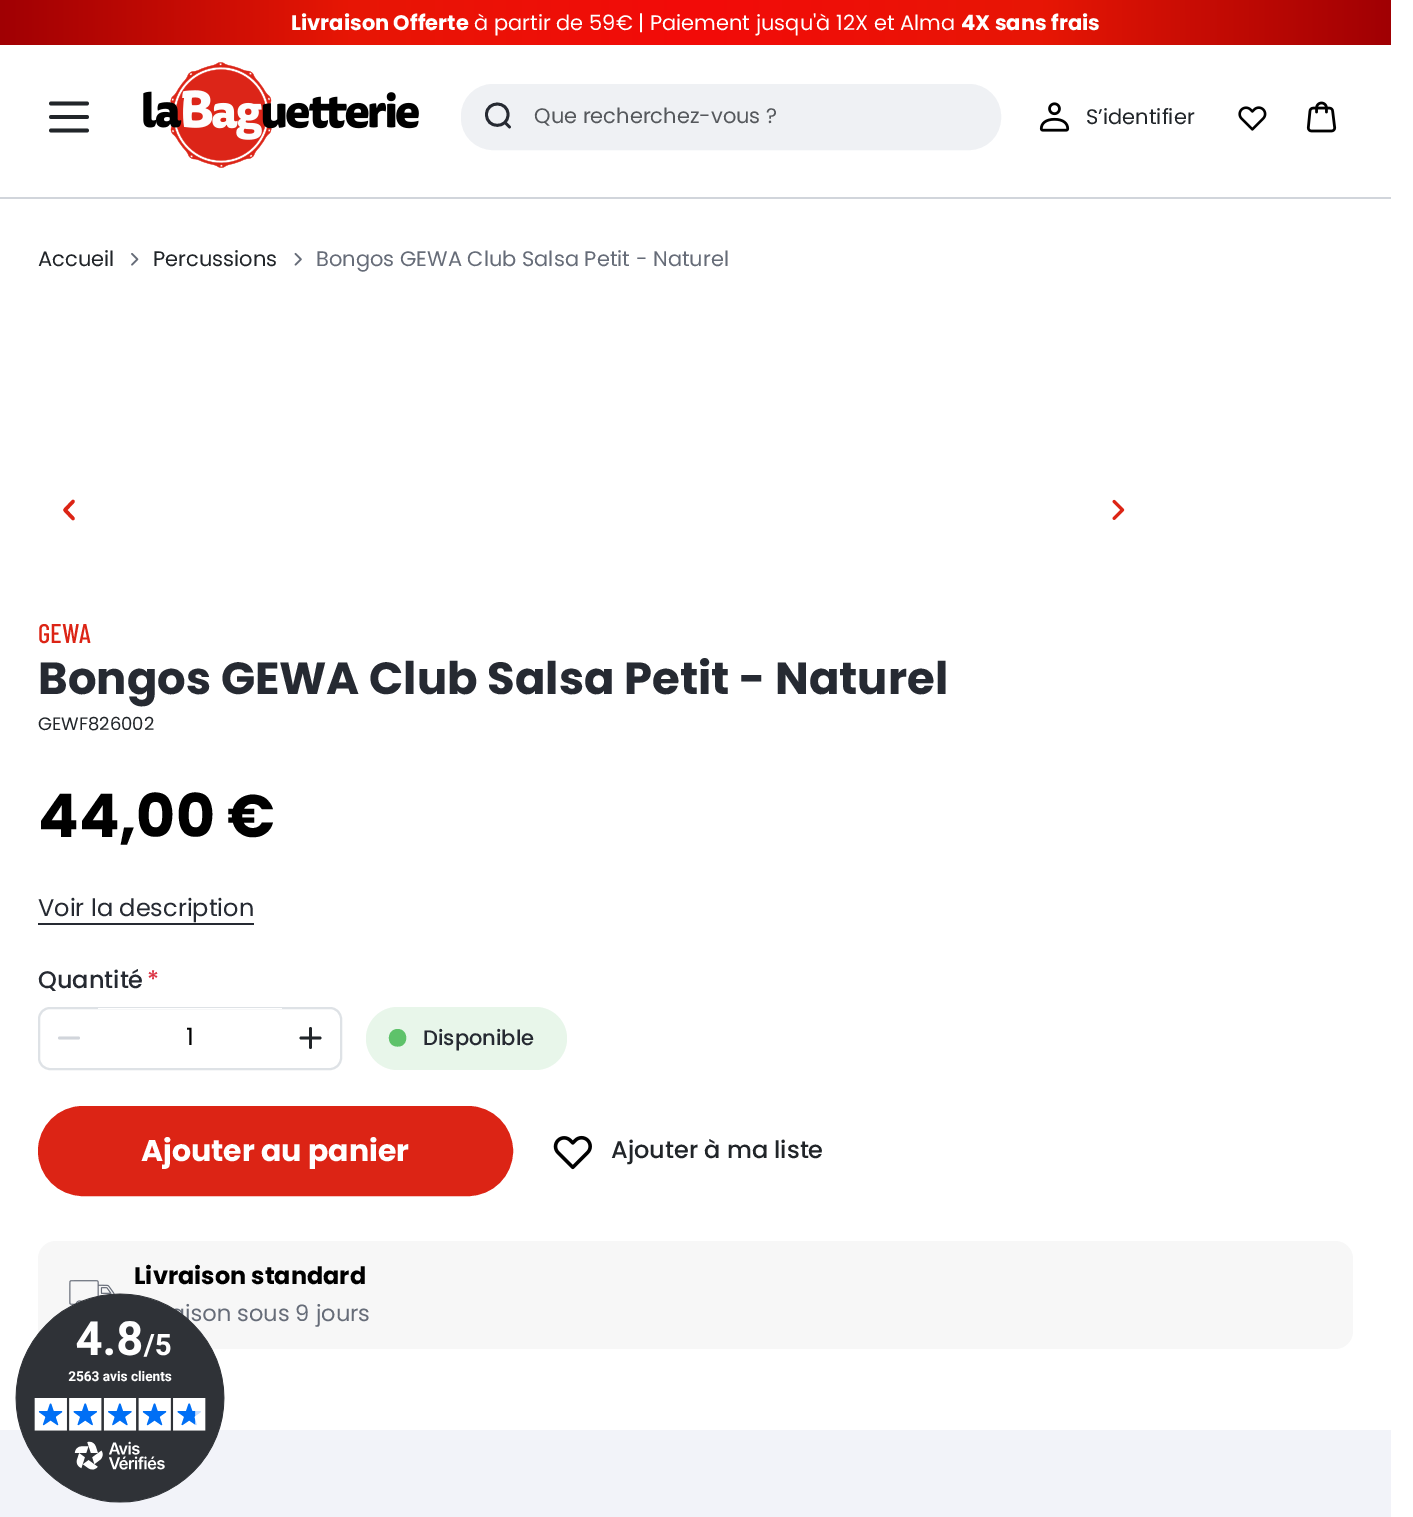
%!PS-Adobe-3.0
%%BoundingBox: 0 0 1413 1517
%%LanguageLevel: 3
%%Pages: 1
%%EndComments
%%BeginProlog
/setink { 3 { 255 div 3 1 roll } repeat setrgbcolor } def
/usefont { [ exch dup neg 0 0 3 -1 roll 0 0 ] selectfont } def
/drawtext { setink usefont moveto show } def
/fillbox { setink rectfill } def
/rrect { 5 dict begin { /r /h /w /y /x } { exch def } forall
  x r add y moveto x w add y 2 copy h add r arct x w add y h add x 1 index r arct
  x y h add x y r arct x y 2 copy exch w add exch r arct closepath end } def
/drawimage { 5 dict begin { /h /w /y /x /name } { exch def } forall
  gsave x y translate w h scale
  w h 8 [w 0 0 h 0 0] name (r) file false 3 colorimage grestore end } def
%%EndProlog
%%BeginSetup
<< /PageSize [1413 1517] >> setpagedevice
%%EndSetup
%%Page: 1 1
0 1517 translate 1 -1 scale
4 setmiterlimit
0 0 1413 1517 255 255 255 fillbox
0 197 1391 2 209 213 219 fillbox
gsave 0 0 moveto 1391 0 lineto 1391 45 lineto 0 45 lineto closepath clip newpath
<< /ShadingType 2 /ColorSpace /DeviceRGB /Coords [0 23 1391 22] /Extend [true true] /Function << /FunctionType 3 /Domain [0 1] /Functions [<< /FunctionType 2 /Domain [0 1] /C0 [0.627 0 0.012] /C1 [0.906 0.086 0.02] /N 1 >> << /FunctionType 2 /Domain [0 1] /C0 [0.906 0.086 0.02] /C1 [0.953 0.043 0.035] /N 1 >> << /FunctionType 2 /Domain [0 1] /C0 [0.953 0.043 0.035] /C1 [0.906 0.086 0.02] /N 1 >> << /FunctionType 2 /Domain [0 1] /C0 [0.906 0.086 0.02] /C1 [0.627 0 0.012] /N 1 >>] /Bounds [0.25 0.5 0.75] /Encode [0 1 0 1 0 1 0 1] >> >> shfill grestore
(Livraison Offerte) 291 30 /Poppins-Bold 21 255 255 255 drawtext
(à partir de 59€ | Paiement jusqu'à 12X et Alma) 474 30 /Poppins-Regular 21 255 255 255 drawtext
(4X sans frais) 961 30 /Poppins-Bold 21 255 255 255 drawtext
33 37 41 setink
3.8 setlinewidth
1 setlinecap
87 130.5 moveto 51 130.5 lineto 87 117 moveto 51 117 lineto 87 103.5 moveto 51 103.5 lineto stroke
(assets/img1.rgb) 143 62 276 106 drawimage
239 241 244 setink
462 85 538 64 31 rrect gsave fill grestore
2 setlinewidth
0 setlinecap
stroke
38 42 50 setink
2.8 setlinewidth
1 setlinecap
505 122.5 moveto 509.5 127 lineto 508 114.5 moveto 508 129 486.5 129 486.5 114.5 curveto 486.5 100.5 508 100.5 508 114.5 curveto closepath stroke
(Que recherchez-vous ?) 534 123 /Poppins-Regular 21 85 88 92 drawtext
(assets/img2.rgb) 1039 102 31 30 drawimage
(S’identifier) 1086 124 /Poppins-Regular 21 33 37 41 drawtext
(assets/img3.rgb) 1238 106 29 25 drawimage
(assets/img4.rgb) 1306 101 31 32 drawimage
(Accueil) 38 266 /Poppins-Regular 21 33 37 41 drawtext
(assets/img5.rgb) 131 253 8 13 drawimage
(Percussions) 153 266 /Poppins-Regular 21 33 37 41 drawtext
(assets/img6.rgb) 294 252 8 14 drawimage
(Bongos GEWA Club Salsa Petit - Naturel) 316 266 /Poppins-Regular 21 102 108 120 drawtext
220 36 21 setink
3.5 setlinewidth
1 setlinejoin
73 518.5 moveto 65 510 lineto 73 501.5 lineto stroke
(assets/img7.rgb) 1112 499 13 21 drawimage
(GEWA) 38 643 /BarlowCondensed-Medium 27 220 36 21 drawtext
(Bongos GEWA Club Salsa Petit - Naturel) 38 694 /Poppins-Bold 45 38 42 50 drawtext
(GEWF826002) 38 730 /Poppins-Regular 18 33 37 41 drawtext
(44,00 €) 38 837 /Poppins-Bold 60 0 0 0 drawtext
(Voir la description) 38 916 /Poppins-Regular 24 38 42 50 drawtext
38 923 216 2 38 42 50 fillbox
(Quantité) 38 988 /Poppins-Medium 24 38 42 50 drawtext
(*) 147 988 /Poppins-Medium 24 220 53 69 drawtext
222 226 230 setink
2 setlinewidth
0 setlinecap
0 setlinejoin
39 1008 302 61 11 rrect stroke
209 213 219 setink
2.8 setlinewidth
1 setlinecap
1 setlinejoin
59.5 1038 moveto 78.5 1038 lineto stroke
98 1008 184 1 255 255 255 fillbox
(1) 186 1045 /Poppins-Regular 24 0 0 0 drawtext
33 37 41 setink
310.5 1028.5 moveto 310.5 1047.5 lineto 301 1038 moveto 320 1038 lineto stroke
232 246 234 setink
366 1007 201 63 31.5 rrect fill
94 194 106 setink
397.5 1029 moveto 409 1029 409 1046.5 398 1046.5 curveto 386 1047 386 1029.5 397.5 1029 curveto fill
(Disponible) 423 1045 /Poppins-Medium 21 38 42 50 drawtext
220 36 21 setink
39 1107 473 88 44 rrect gsave fill grestore
2 setlinewidth
0 setlinecap
0 setlinejoin
stroke
(Ajouter au panier) 141 1161 /Poppins-Bold 30 255 255 255 drawtext
(assets/img8.rgb) 553 1135 39 35 drawimage
(Ajouter à ma liste) 611 1158 /Poppins-Medium 24 33 37 41 drawtext
247 247 247 setink
38 1241 1315 108 18 rrect fill
(assets/img9.rgb) 69 1280 46 25 drawimage
(Livraison standard) 134 1284 /Poppins-Bold 24 0 0 0 drawtext
(ison sous 9 jours) 185 1321 /Poppins-Regular 22.5 102 108 120 drawtext
0 1430 1391 87 242 243 249 fillbox
(assets/img10.rgb) 15 1293 210 210 drawimage
showpage
%%EOF
